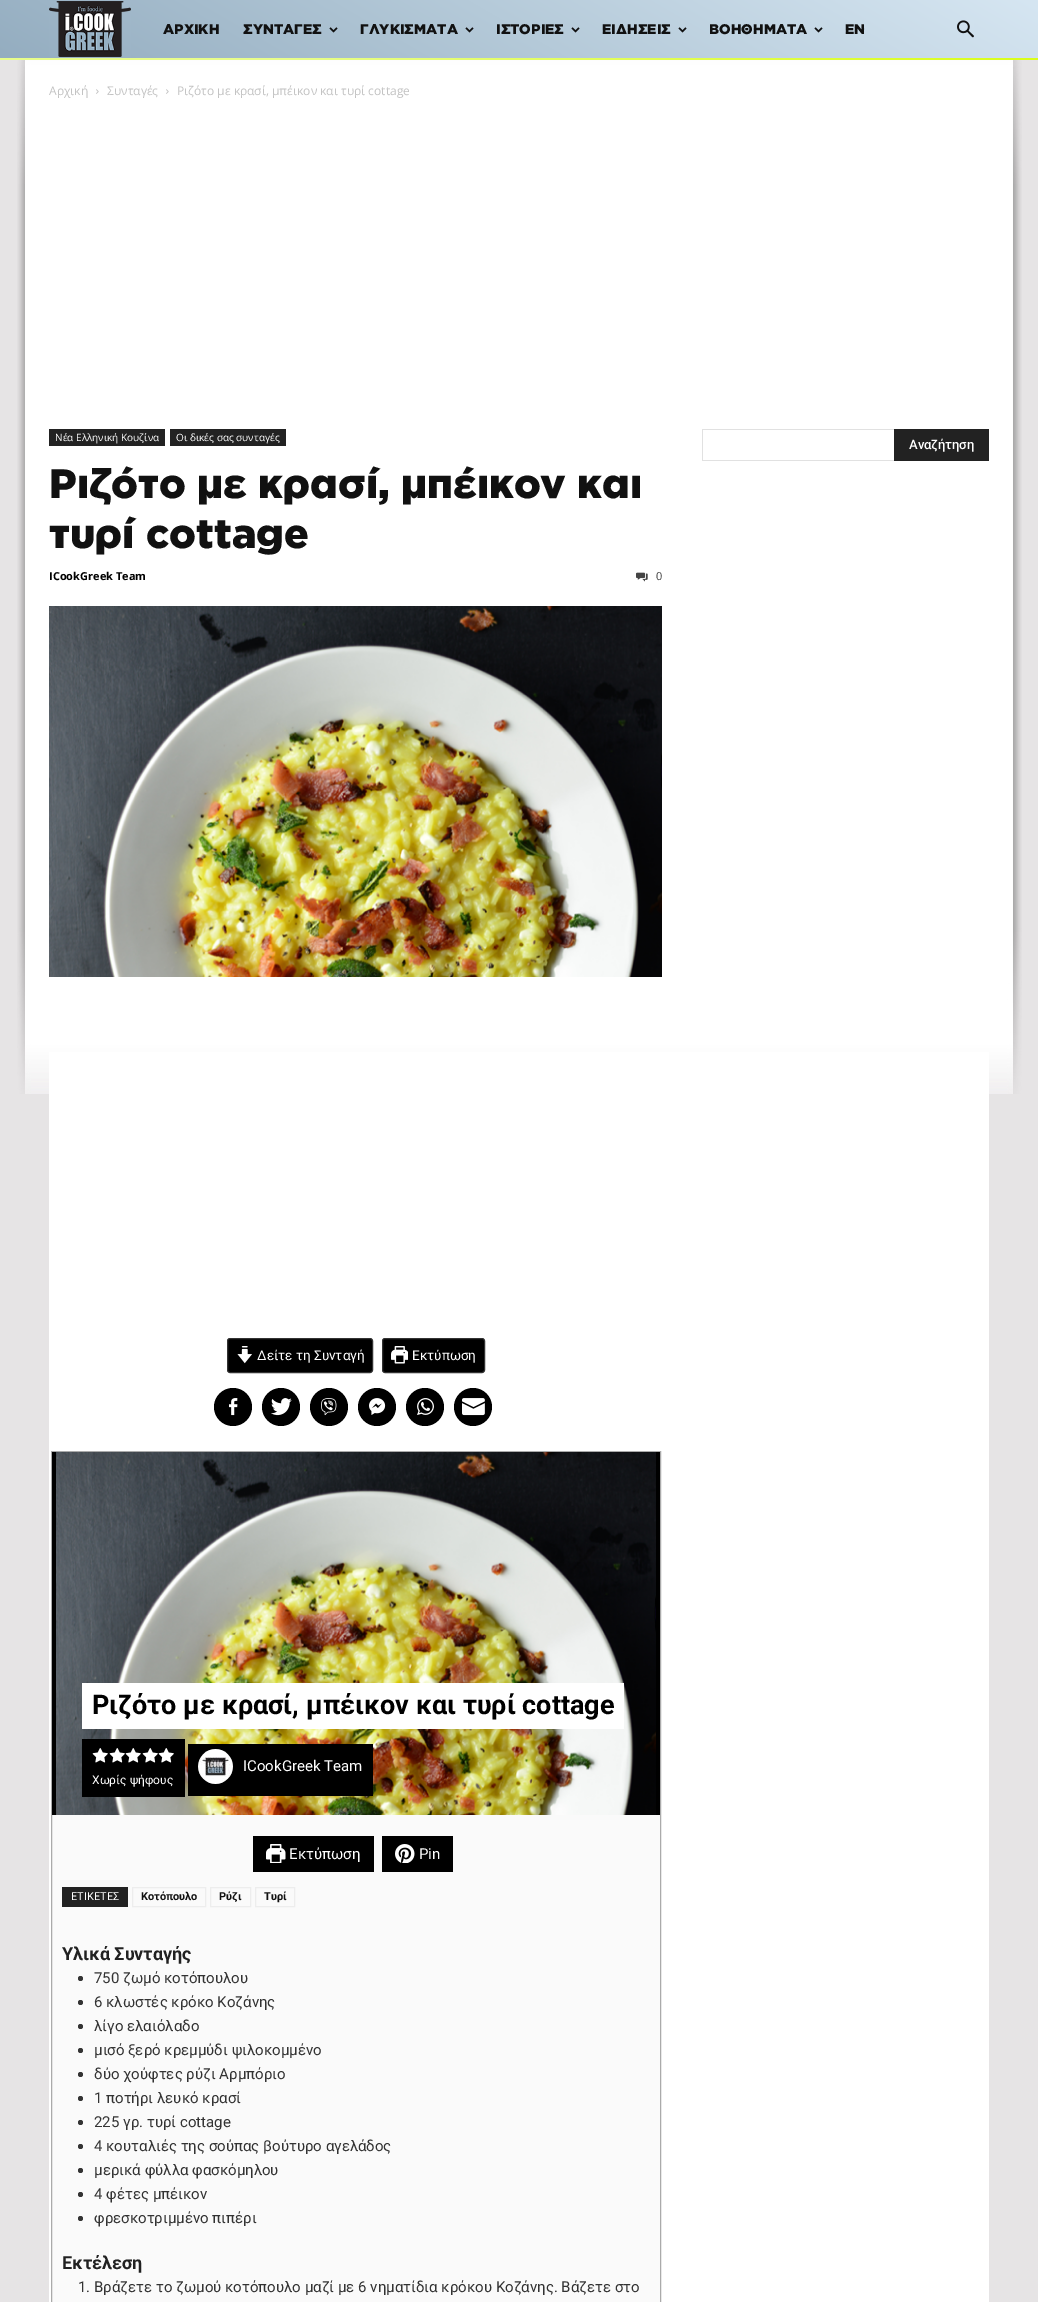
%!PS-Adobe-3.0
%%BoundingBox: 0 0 1038 2302
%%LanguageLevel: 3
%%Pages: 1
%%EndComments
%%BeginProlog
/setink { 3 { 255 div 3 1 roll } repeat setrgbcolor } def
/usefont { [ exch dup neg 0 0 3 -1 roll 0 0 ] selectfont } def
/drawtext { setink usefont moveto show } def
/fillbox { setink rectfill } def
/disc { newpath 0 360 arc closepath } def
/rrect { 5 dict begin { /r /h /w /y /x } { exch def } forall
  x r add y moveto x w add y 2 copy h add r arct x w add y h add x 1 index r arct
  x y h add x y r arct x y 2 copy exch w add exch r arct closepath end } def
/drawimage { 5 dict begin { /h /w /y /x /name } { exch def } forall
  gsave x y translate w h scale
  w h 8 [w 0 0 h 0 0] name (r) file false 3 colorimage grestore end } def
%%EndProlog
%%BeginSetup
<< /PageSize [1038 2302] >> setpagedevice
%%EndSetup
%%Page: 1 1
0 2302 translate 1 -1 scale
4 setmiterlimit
0 0 1038 2302 230 228 229 fillbox
gsave 0 0 moveto 1038 0 lineto 1038 58 lineto 0 58 lineto closepath clip newpath
<< /ShadingType 2 /ColorSpace /DeviceRGB /Coords [662 -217 376 277] /Extend [true true] /Function << /FunctionType 2 /Domain [0 1] /C0 [0.839 0.902 0.949] /C1 [0.58 0.678 0.753] /N 1 >> >> shfill grestore
(assets/img1.rgb) 49 1 82 56 drawimage
(ΑΡΧΙΚΗ) 163 34 /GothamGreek-Black 14 17 17 17 drawtext
(ΣΥΝΤΑΓΕΣ) 243 34 /GothamGreek-Black 14 17 17 17 drawtext
(assets/img2.rgb) 329 27 9 6 drawimage
(ΓΛΥΚΙΣΜΑΤΑ) 360 34 /GothamGreek-Black 14 17 17 17 drawtext
(assets/img3.rgb) 465 27 9 6 drawimage
(ΙΣΤΟΡΙΕΣ) 496 34 /GothamGreek-Black 14 17 17 17 drawtext
(assets/img4.rgb) 571 27 9 6 drawimage
(ΕΙΔΗΣΕΙΣ) 602 34 /GothamGreek-Black 14 17 17 17 drawtext
(assets/img5.rgb) 678 27 9 6 drawimage
(ΒΟΗΘΗΜΑΤΑ) 709 34 /GothamGreek-Black 14 17 17 17 drawtext
(assets/img6.rgb) 814 27 9 6 drawimage
(EN) 845 34 /GothamGreek-Black 14 17 17 17 drawtext
(assets/img7.rgb) 957 20 17 18 drawimage
gsave 0 58 moveto 1038 58 lineto 1038 60 lineto 0 60 lineto closepath clip newpath
<< /ShadingType 2 /ColorSpace /DeviceRGB /Coords [0 59 1038 59] /Extend [true true] /Function << /FunctionType 3 /Domain [0 1] /Functions [<< /FunctionType 2 /Domain [0 1] /C0 [0.91 0.992 0.541] /C1 [0.91 0.992 0.541] /N 1 >> << /FunctionType 2 /Domain [0 1] /C0 [0.91 0.992 0.541] /C1 [0.859 1 0.094] /N 1 >>] /Bounds [0.28] /Encode [0 1 0 1] >> >> shfill grestore
(assets/img8.rgb) 17 60 1005 1034 drawimage
49 1052 940 1250 255 255 255 fillbox
(Αρχική) 49 95 /OpenSans-Regular 12 195 195 195 drawtext
(assets/img9.rgb) 96 89 3 5 drawimage
(Συνταγές) 107 95 /OpenSans-Regular 12 195 195 195 drawtext
(assets/img9.rgb) 166 89 3 5 drawimage
(Ριζότο με κρασί, μπέικον και τυρί cottage) 177 95 /OpenSans-Regular 12 195 195 195 drawtext
49 429 116 17 34 34 34 fillbox
(Νέα Ελληνική Κουζίνα) 55 441 /OpenSans-Regular 10 255 255 255 drawtext
170 429 116 17 34 34 34 fillbox
(Οι δικές σας συνταγές) 176 441 /OpenSans-Regular 10 255 255 255 drawtext
(Ριζότο με κρασί, μπέικον και) 49 498 /GothamGreek-Black 41 17 17 17 drawtext
(τυρί cottage) 49 548 /GothamGreek-Black 41 17 17 17 drawtext
(ICookGreek Team) 49 580 /OpenSans-Bold 11 0 0 0 drawtext
(assets/img10.rgb) 636 572 12 10 drawimage
(0) 656 580 /OpenSans-Regular 11 68 68 68 drawtext
(assets/img11.rgb) 49 606 613 371 drawimage
0 0 0 setink
227.5 1338.5 145 34 2.5 rrect gsave fill grestore
51 51 51 setink
stroke
(assets/img12.rgb) 237 1346 15 18 drawimage
(Δείτε τη Συνταγή) 257 1360 /Roboto-Regular 13.5 255 255 255 drawtext
0 0 0 setink
382.5 1338.5 102 34 2.5 rrect gsave fill grestore
51 51 51 setink
stroke
(assets/img13.rgb) 391 1346 17 18 drawimage
(Εκτύπωση) 412 1360 /Roboto-Regular 13.5 255 255 255 drawtext
0 0 0 setink
233 1407 19 disc fill
(assets/img14.rgb) 229 1398 9 18 drawimage
281 1407 19 disc fill
(assets/img15.rgb) 271 1398 21 18 drawimage
329 1407 19 disc fill
(assets/img16.rgb) 321 1398 16 18 drawimage
377 1407 19 disc fill
(assets/img17.rgb) 369 1398 17 17 drawimage
425 1407 19 disc fill
(assets/img18.rgb) 417 1398 17 17 drawimage
473 1407 19 disc fill
(assets/img19.rgb) 462 1398 23 18 drawimage
52 1815 608 487 250 250 250 fillbox
170 170 170 setink
51.5 1451.5 609 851 rectstroke
52 1452 608 363 0 0 0 fillbox
(assets/img20.rgb) 56 1452 600 363 drawimage
82 1683 542 46 255 255 255 fillbox
(Ριζότο με κρασί, μπέικον και τυρί cottage) 92 1714 /Roboto-Bold 27 0 0 0 drawtext
188 1744 185 52 0 0 0 fillbox
(assets/img21.rgb) 198 1749 35 35 drawimage
(ICookGreek Team) 243 1771 /Roboto-Regular 15 255 255 255 drawtext
82 1739 103 58 0 0 0 fillbox
(assets/img22.rgb) 92 1748 16 15 drawimage
(assets/img22.rgb) 109 1748 16 15 drawimage
(assets/img22.rgb) 125 1748 16 15 drawimage
(assets/img22.rgb) 142 1748 16 15 drawimage
(assets/img22.rgb) 158 1748 16 15 drawimage
(Χωρίς ψήφους) 92 1784 /Roboto-Regular 12 255 255 255 drawtext
253 1836 121 36 0 0 0 fillbox
(assets/img23.rgb) 266 1844 20 19 drawimage
(Εκτύπωση) 289 1859 /Roboto-Regular 15 255 255 255 drawtext
382 1836 71 36 0 0 0 fillbox
(assets/img24.rgb) 395 1844 20 19 drawimage
(Pin) 419 1859 /Roboto-Regular 15 255 255 255 drawtext
62 1887 66 20 34 34 34 fillbox
(ΕΤΙΚΕΤΕΣ) 71 1900 /Roboto-Regular 11 255 255 255 drawtext
237 237 237 setink
132.5 1887.5 73 19 rectstroke
(Κοτόπουλο) 141 1900 /Roboto-Bold 11 17 17 17 drawtext
237 237 237 setink
210.5 1887.5 40 19 rectstroke
(Ρύζι) 219 1900 /Roboto-Bold 11 17 17 17 drawtext
237 237 237 setink
255.5 1887.5 39 19 rectstroke
(Τυρί) 264 1900 /Roboto-Bold 11 17 17 17 drawtext
(Υλικά Συνταγής) 62 1960 /Roboto-Bold 18 33 33 33 drawtext
51 51 51 setink
80.5 1978.5 2.5 disc fill
(750 ζωμό κοτόπουλου) 94 1983 /Roboto-Regular 15 51 51 51 drawtext
80.5 2002.5 2.5 disc fill
(6 κλωστές κρόκο Κοζάνης) 94 2007 /Roboto-Regular 15 51 51 51 drawtext
80.5 2026.5 2.5 disc fill
(λίγο ελαιόλαδο) 94 2031 /Roboto-Regular 15 51 51 51 drawtext
80.5 2050.5 2.5 disc fill
(μισό ξερό κρεμμύδι ψιλοκομμένο) 94 2055 /Roboto-Regular 15 51 51 51 drawtext
80.5 2074.5 2.5 disc fill
(δύο χούφτες ρύζι Αρμπόριο) 94 2079 /Roboto-Regular 15 51 51 51 drawtext
80.5 2098.5 2.5 disc fill
(1 ποτήρι λευκό κρασί) 94 2103 /Roboto-Regular 15 51 51 51 drawtext
80.5 2122.5 2.5 disc fill
(225 γρ. τυρί cottage) 94 2127 /Roboto-Regular 15 51 51 51 drawtext
80.5 2146.5 2.5 disc fill
(4 κουταλιές της σούπας βούτυρο αγελάδος) 94 2151 /Roboto-Regular 15 51 51 51 drawtext
80.5 2170.5 2.5 disc fill
(μερικά φύλλα φασκόμηλου) 94 2175 /Roboto-Regular 15 51 51 51 drawtext
80.5 2194.5 2.5 disc fill
(4 φέτες μπέικον) 94 2199 /Roboto-Regular 15 51 51 51 drawtext
80.5 2218.5 2.5 disc fill
(φρεσκοτριμμένο πιπέρι) 94 2223 /Roboto-Regular 15 51 51 51 drawtext
(Εκτέλεση) 62 2269 /Roboto-Bold 18 33 33 33 drawtext
(1. Βράζετε το ζωμού κοτόπουλο μαζί με 6 νηματίδια κρόκου Κοζάνης. Βάζετε στο) 78 2292 /Roboto-Regular 15 51 51 51 drawtext
702 429 192 1 225 225 225 fillbox
702 460 192 1 225 225 225 fillbox
702 429 1 32 225 225 225 fillbox
894 429 95 32 34 34 34 fillbox
(Αναζήτηση) 909 449 /Roboto-Medium 13 255 255 255 drawtext
showpage
%%EOF
